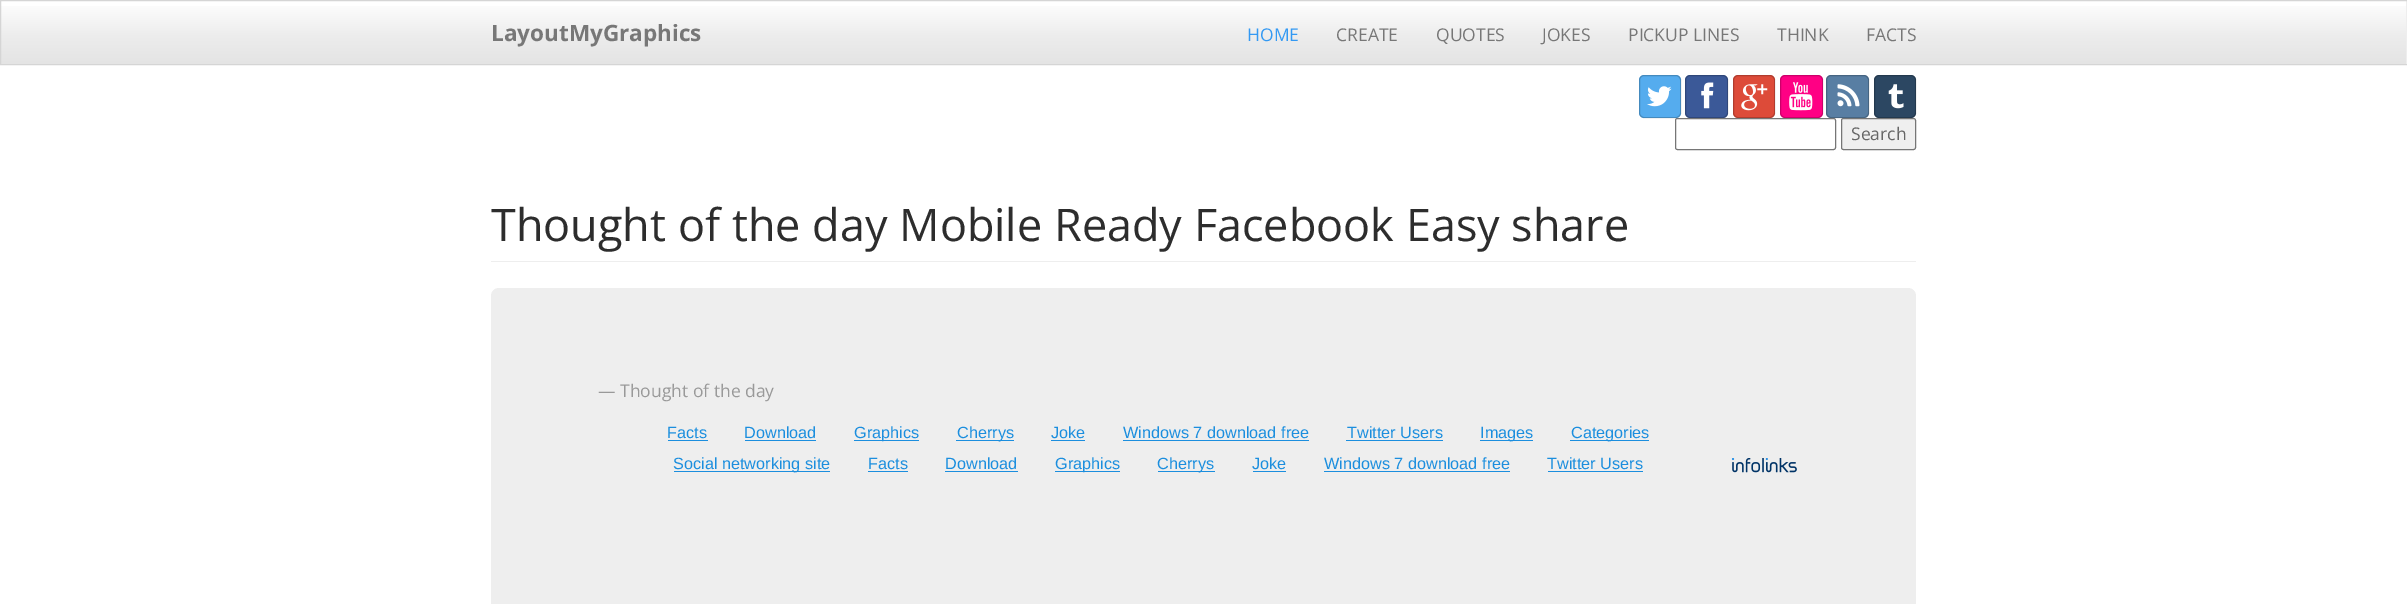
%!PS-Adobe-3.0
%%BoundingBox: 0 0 2407 604
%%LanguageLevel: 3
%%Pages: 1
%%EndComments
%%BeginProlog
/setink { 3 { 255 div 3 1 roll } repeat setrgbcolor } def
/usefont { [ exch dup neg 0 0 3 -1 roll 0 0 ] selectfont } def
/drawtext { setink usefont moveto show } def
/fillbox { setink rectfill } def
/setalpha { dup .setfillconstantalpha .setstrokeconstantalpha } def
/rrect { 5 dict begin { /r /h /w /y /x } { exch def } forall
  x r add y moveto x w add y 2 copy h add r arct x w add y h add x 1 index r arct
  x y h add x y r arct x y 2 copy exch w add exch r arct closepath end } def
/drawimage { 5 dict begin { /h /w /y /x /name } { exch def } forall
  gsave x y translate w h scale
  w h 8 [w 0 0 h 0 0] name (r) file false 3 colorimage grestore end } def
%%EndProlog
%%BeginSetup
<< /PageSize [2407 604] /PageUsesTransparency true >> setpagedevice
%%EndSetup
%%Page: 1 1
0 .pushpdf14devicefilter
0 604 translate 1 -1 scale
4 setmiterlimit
0 0 2407 604 255 255 255 fillbox
2406 1 1 63 238 238 238 fillbox
gsave 1 6 moveto 2406 6 lineto 2406 64 lineto 1 64 lineto closepath clip newpath
<< /ShadingType 2 /ColorSpace /DeviceRGB /Coords [1204 1.2 1204 64] /Extend [true true] /Function << /FunctionType 3 /Domain [0 1] /Functions [<< /FunctionType 2 /Domain [0 1] /C0 [1 1 1] /C1 [0.933 0.933 0.933] /N 1 >> << /FunctionType 2 /Domain [0 1] /C0 [0.933 0.933 0.933] /C1 [0.894 0.894 0.894] /N 1 >>] /Bounds [0.5] /Encode [0 1 0 1] >> >> shfill grestore
213 213 213 setink
0.5 0.5 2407 64 rectstroke
(LayoutMyGraphics) 491 41 /OpenSans-Bold 22.5 119 119 119 drawtext
(HOME) 1247 41 /OpenSans-Regular 17.5 51 153 243 drawtext
(CREATE) 1336 41 /OpenSans-Regular 17.5 119 119 119 drawtext
(QUOTES) 1436 41 /OpenSans-Regular 17.5 119 119 119 drawtext
(JOKES) 1542 41 /OpenSans-Regular 17.5 119 119 119 drawtext
(PICKUP LINES) 1628 41 /OpenSans-Regular 17.5 119 119 119 drawtext
(THINK) 1777 41 /OpenSans-Regular 17.5 119 119 119 drawtext
(FACTS) 1866 41 /OpenSans-Regular 17.5 119 119 119 drawtext
85 172 238 setink
1639 75 42 43 5 rrect fill
0.2 setalpha
0 0 0 setink
1639.5 75.5 41 42 4.5 rrect stroke
1 setalpha
(assets/img1.rgb) 1647 86 25 21 drawimage
59 89 152 setink
1685 75 43 43 5 rrect fill
0.2 setalpha
0 0 0 setink
1685.5 75.5 42 42 4.5 rrect stroke
1 setalpha
(assets/img2.rgb) 1701 82 13 27 drawimage
221 75 57 setink
1733 75 42 43 5 rrect fill
0.2 setalpha
0 0 0 setink
1733.5 75.5 41 42 4.5 rrect stroke
1 setalpha
(assets/img3.rgb) 1741 84 27 27 drawimage
255 0 132 setink
1780 75 43 43 5 rrect fill
0.2 setalpha
0 0 0 setink
1780.5 75.5 42 42 4.5 rrect stroke
1 setalpha
(assets/img4.rgb) 1789 82 24 29 drawimage
88 126 163 setink
1826 75 43 43 5 rrect fill
0.2 setalpha
0 0 0 setink
1826.5 75.5 42 42 4.5 rrect stroke
1 setalpha
(assets/img5.rgb) 1837 84 23 23 drawimage
44 71 98 setink
1874 75 42 43 5 rrect fill
0.2 setalpha
0 0 0 setink
1874.5 75.5 41 42 4.5 rrect stroke
1 setalpha
(assets/img6.rgb) 1888 84 16 25 drawimage
118 118 118 setink
1675.5 118.5 160 31 2 rrect stroke
239 239 239 setink
1841.5 118.5 74 31 2 rrect gsave fill grestore
118 118 118 setink
stroke
(Search) 1851 140 /OpenSans-Regular 17.5 102 102 102 drawtext
491 261 1425 1 238 238 238 fillbox
(Thought of the day Mobile Ready Facebook Easy share) 491 241 /OpenSans-Regular 45 45 45 45 drawtext
238 238 238 setink
491 288 1425 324 8 rrect fill
(— Thought of the day) 598 397 /OpenSans-Regular 17.5 153 153 153 drawtext
(Facts) 667 438 /LiberationSans-Regular 16.25 27 142 222 drawtext
668 440 40 1 27 142 222 fillbox
(Download) 744 438 /LiberationSans-Regular 16.25 27 142 222 drawtext
745 440 71 1 27 142 222 fillbox
854 440 65 1 27 142 222 fillbox
(Graphics) 854 438 /LiberationSans-Regular 16.25 27 142 222 drawtext
956 440 58 1 27 142 222 fillbox
(Cherrys) 957 438 /LiberationSans-Regular 16.25 27 142 222 drawtext
(Joke) 1051 438 /LiberationSans-Regular 16.25 27 142 222 drawtext
1051 440 34 1 27 142 222 fillbox
(Windows 7 download free) 1123 438 /LiberationSans-Regular 16.25 27 142 222 drawtext
1123 440 186 1 27 142 222 fillbox
(Twitter Users) 1347 438 /LiberationSans-Regular 16.25 27 142 222 drawtext
1346 440 97 1 27 142 222 fillbox
1480 440 53 1 27 142 222 fillbox
(Images) 1480 438 /LiberationSans-Regular 16.25 27 142 222 drawtext
1570 440 79 1 27 142 222 fillbox
(Categories) 1571 438 /LiberationSans-Regular 16.25 27 142 222 drawtext
674 471 156 1 27 142 222 fillbox
(Social networking site) 673 469 /LiberationSans-Regular 16.25 27 142 222 drawtext
(Facts) 868 469 /LiberationSans-Regular 16.25 27 142 222 drawtext
868 471 40 1 27 142 222 fillbox
(Download) 945 469 /LiberationSans-Regular 16.25 27 142 222 drawtext
945 471 73 1 27 142 222 fillbox
1055 471 65 1 27 142 222 fillbox
(Graphics) 1055 469 /LiberationSans-Regular 16.25 27 142 222 drawtext
1158 471 57 1 27 142 222 fillbox
(Cherrys) 1157 469 /LiberationSans-Regular 16.25 27 142 222 drawtext
(Joke) 1252 469 /LiberationSans-Regular 16.25 27 142 222 drawtext
1253 471 33 1 27 142 222 fillbox
(Windows 7 download free) 1324 469 /LiberationSans-Regular 16.25 27 142 222 drawtext
1324 471 186 1 27 142 222 fillbox
(Twitter Users) 1547 469 /LiberationSans-Regular 16.25 27 142 222 drawtext
1548 471 95 1 27 142 222 fillbox
(assets/img7.rgb) 1731 458 66 15 drawimage
.poppdf14devicefilter showpage
%%EOF
